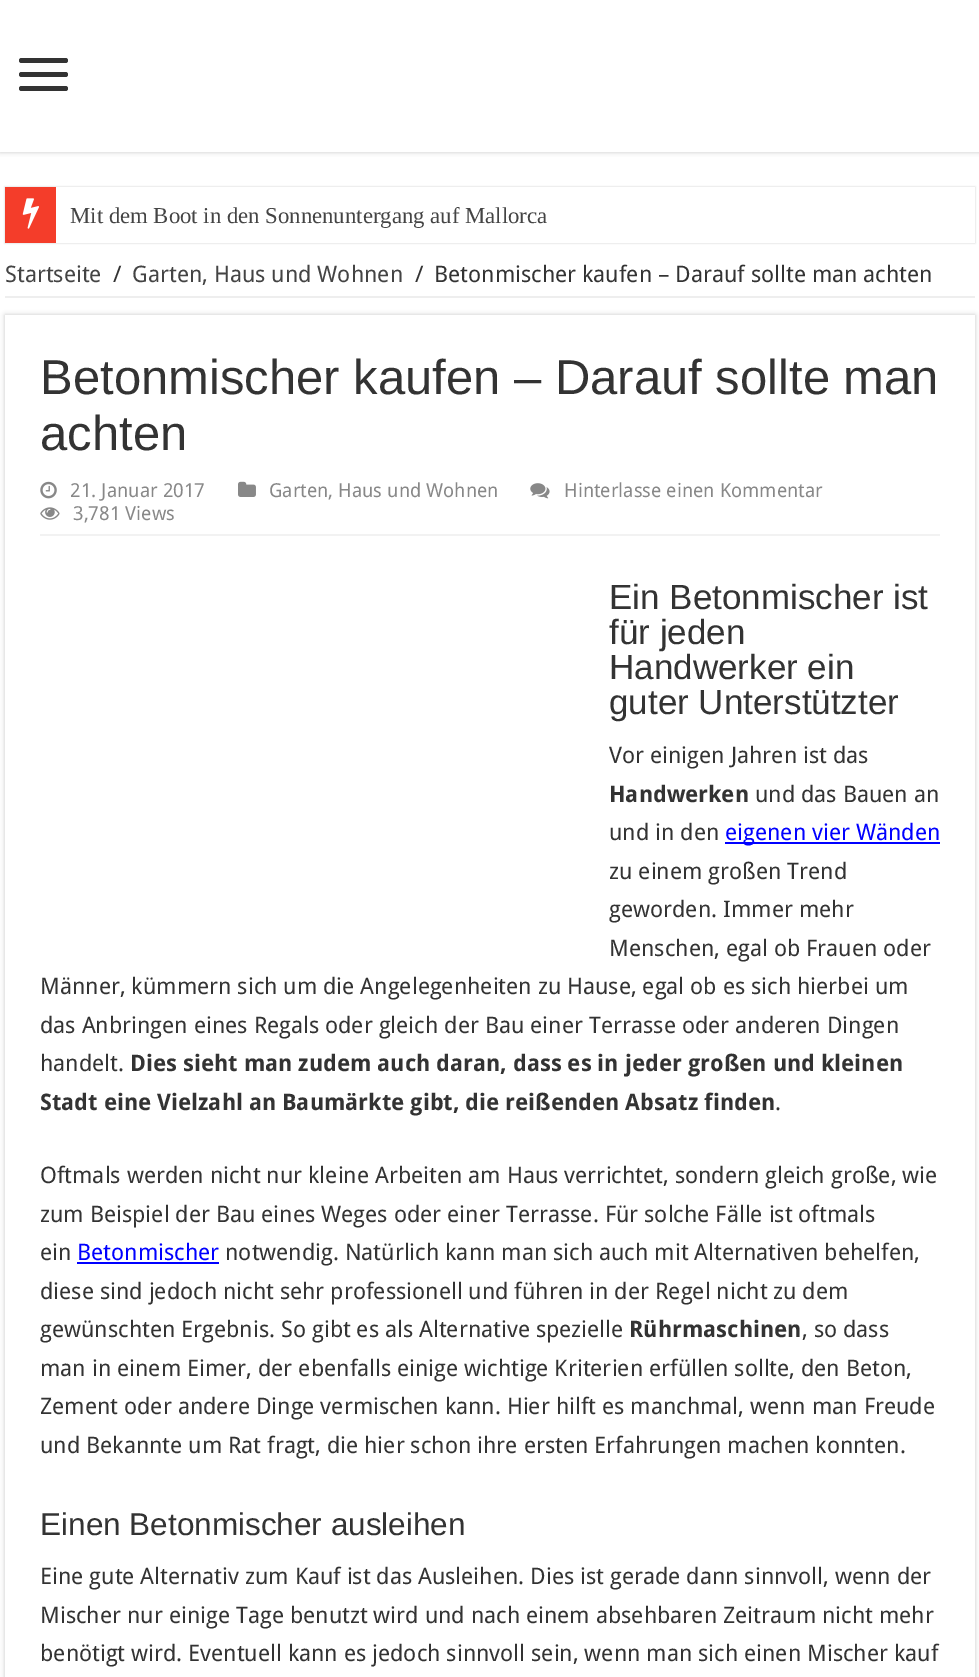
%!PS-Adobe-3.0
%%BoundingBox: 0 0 979 1677
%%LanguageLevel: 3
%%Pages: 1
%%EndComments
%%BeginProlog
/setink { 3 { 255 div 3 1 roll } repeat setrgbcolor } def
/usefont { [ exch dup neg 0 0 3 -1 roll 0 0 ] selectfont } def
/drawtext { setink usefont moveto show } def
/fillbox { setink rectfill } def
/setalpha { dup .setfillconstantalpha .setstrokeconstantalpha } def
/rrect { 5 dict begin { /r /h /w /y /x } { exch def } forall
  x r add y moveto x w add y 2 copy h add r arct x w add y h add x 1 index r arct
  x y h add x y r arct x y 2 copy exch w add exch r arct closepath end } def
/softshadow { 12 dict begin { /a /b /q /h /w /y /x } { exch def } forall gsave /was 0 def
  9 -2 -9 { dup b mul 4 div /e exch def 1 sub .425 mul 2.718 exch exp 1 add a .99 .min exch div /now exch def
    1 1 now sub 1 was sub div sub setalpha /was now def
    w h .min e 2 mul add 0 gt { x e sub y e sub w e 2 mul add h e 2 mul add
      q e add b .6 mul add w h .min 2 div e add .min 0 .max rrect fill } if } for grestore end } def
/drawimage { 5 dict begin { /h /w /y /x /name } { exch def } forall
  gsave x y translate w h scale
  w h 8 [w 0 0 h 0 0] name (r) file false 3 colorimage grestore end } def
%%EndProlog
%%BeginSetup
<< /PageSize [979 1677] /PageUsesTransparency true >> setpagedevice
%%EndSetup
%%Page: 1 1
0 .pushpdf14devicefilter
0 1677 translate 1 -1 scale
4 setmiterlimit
0 0 979 1677 255 255 255 fillbox
gsave
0 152 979 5 rectclip
202 202 202 setink
0 -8 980 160 0 2.5 1 softshadow
grestore
51 51 51 setink
19 58 49 5 2.5 rrect fill
19 72 49 5 2.5 rrect fill
19 86 49 5 2.5 rrect fill
202 202 202 setink
5 187 970 56 0 1 1 softshadow
56 187 919 56 255 255 255 fillbox
5 187 51 56 244 61 42 fillbox
(assets/img1.rgb) 22 198 17 31 drawimage
(Mit dem Boot in den Sonnenuntergang auf Mallorca) 70 223 /LiberationSerif-Regular 22.75 68 68 68 drawtext
5 296 970 2 238 238 238 fillbox
(Startseite) 5 282 /DroidSans-Regular 22.75 68 68 68 drawtext
(/) 113 282 /DroidSans-Regular 22.75 51 51 51 drawtext
(Garten, Haus und Wohnen) 132 282 /DroidSans-Regular 22.75 68 68 68 drawtext
(/) 415 282 /DroidSans-Regular 22.75 51 51 51 drawtext
(Betonmischer kaufen – Darauf sollte man achten) 434 282 /DroidSans-Regular 22.75 51 51 51 drawtext
202 202 202 setink
5 315 970 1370 0 2.5 1 softshadow
5 315 970 1362 255 255 255 fillbox
(Betonmischer kaufen – Darauf sollte man) 40 394 /LiberationSans-Regular 49 51 51 51 drawtext
(achten) 40 450 /LiberationSans-Regular 49 51 51 51 drawtext
40 534 900 2 242 242 242 fillbox
(assets/img2.rgb) 40 481 17 18 drawimage
(21. Januar 2017) 70 497 /DroidSans-Regular 19.3 136 136 136 drawtext
(assets/img3.rgb) 238 481 18 16 drawimage
(Garten, Haus und Wohnen) 269 497 /DroidSans-Regular 19.3 136 136 136 drawtext
(assets/img4.rgb) 530 483 20 16 drawimage
(Hinterlasse einen Kommentar) 564 497 /DroidSans-Regular 19.3 136 136 136 drawtext
(assets/img5.rgb) 40 507 20 13 drawimage
(3,781 Views) 73 520 /DroidSans-Regular 19.3 136 136 136 drawtext
(Ein Betonmischer ist) 609 609 /LiberationSans-Regular 35 51 51 51 drawtext
(für jeden) 609 644 /LiberationSans-Regular 35 51 51 51 drawtext
(Handwerker ein) 609 679 /LiberationSans-Regular 35 51 51 51 drawtext
(guter Unterstützter) 609 714 /LiberationSans-Regular 35 51 51 51 drawtext
(Vor einigen Jahren ist das) 609 763 /DroidSans-Regular 22.75 51 51 51 drawtext
(Handwerken) 609 802 /DroidSans-Bold 22.75 51 51 51 drawtext
(und das Bauen an) 755 802 /DroidSans-Regular 22.75 51 51 51 drawtext
(und in den) 609 840 /DroidSans-Regular 22.75 51 51 51 drawtext
725 842 215 2 0 0 255 fillbox
(eigenen vier Wänden) 725 840 /DroidSans-Regular 22.75 0 0 255 drawtext
(zu einem großen Trend) 609 879 /DroidSans-Regular 22.75 51 51 51 drawtext
(geworden. Immer mehr) 609 917 /DroidSans-Regular 22.75 51 51 51 drawtext
(Menschen, egal ob Frauen oder) 609 956 /DroidSans-Regular 22.75 51 51 51 drawtext
(Männer, kümmern sich um die Angelegenheiten zu Hause, egal ob es sich hierbei um) 40 994 /DroidSans-Regular 22.75 51 51 51 drawtext
(das Anbringen eines Regals oder gleich der Bau einer Terrasse oder anderen Dingen) 40 1033 /DroidSans-Regular 22.75 51 51 51 drawtext
(handelt.) 40 1071 /DroidSans-Regular 22.75 51 51 51 drawtext
(Dies sieht man zudem auch daran, dass es in jeder großen und kleinen) 130 1071 /DroidSans-Bold 22.75 51 51 51 drawtext
(Stadt eine Vielzahl an Baumärkte gibt, die reißenden Absatz finden) 40 1110 /DroidSans-Bold 22.75 51 51 51 drawtext
(.) 775 1110 /DroidSans-Regular 22.75 51 51 51 drawtext
(Oftmals werden nicht nur kleine Arbeiten am Haus verrichtet, sondern gleich große, wie) 40 1183 /DroidSans-Regular 22.75 51 51 51 drawtext
(zum Beispiel der Bau eines Weges oder einer Terrasse. Für solche Fälle ist oftmals) 40 1222 /DroidSans-Regular 22.75 51 51 51 drawtext
(ein) 40 1260 /DroidSans-Regular 22.75 51 51 51 drawtext
(Betonmischer) 77 1260 /DroidSans-Regular 22.75 0 0 255 drawtext
77 1262 142 2 0 0 255 fillbox
(notwendig. Natürlich kann man sich auch mit Alternativen behelfen,) 225 1260 /DroidSans-Regular 22.75 51 51 51 drawtext
(diese sind jedoch nicht sehr professionell und führen in der Regel nicht zu dem) 40 1299 /DroidSans-Regular 22.75 51 51 51 drawtext
(gewünschten Ergebnis. So gibt es als Alternative spezielle) 40 1337 /DroidSans-Regular 22.75 51 51 51 drawtext
(Rührmaschinen) 629 1337 /DroidSans-Bold 22.75 51 51 51 drawtext
(, so dass) 802 1337 /DroidSans-Regular 22.75 51 51 51 drawtext
(man in einem Eimer, der ebenfalls einige wichtige Kriterien erfüllen sollte, den Beton,) 40 1376 /DroidSans-Regular 22.75 51 51 51 drawtext
(Zement oder andere Dinge vermischen kann. Hier hilft es manchmal, wenn man Freude) 40 1414 /DroidSans-Regular 22.75 51 51 51 drawtext
(und Bekannte um Rat fragt, die hier schon ihre ersten Erfahrungen machen konnten.) 40 1453 /DroidSans-Regular 22.75 51 51 51 drawtext
(Einen Betonmischer ausleihen) 40 1535 /LiberationSans-Regular 31.5 51 51 51 drawtext
(Eine gute Alternativ zum Kauf ist das Ausleihen. Dies ist gerade dann sinnvoll, wenn der) 40 1584 /DroidSans-Regular 22.75 51 51 51 drawtext
(Mischer nur einige Tage benutzt wird und nach einem absehbaren Zeitraum nicht mehr) 40 1623 /DroidSans-Regular 22.75 51 51 51 drawtext
(benötigt wird. Eventuell kann es jedoch sinnvoll sein, wenn man sich einen Mischer kauf) 40 1661 /DroidSans-Regular 22.75 51 51 51 drawtext
.poppdf14devicefilter showpage
%%EOF
